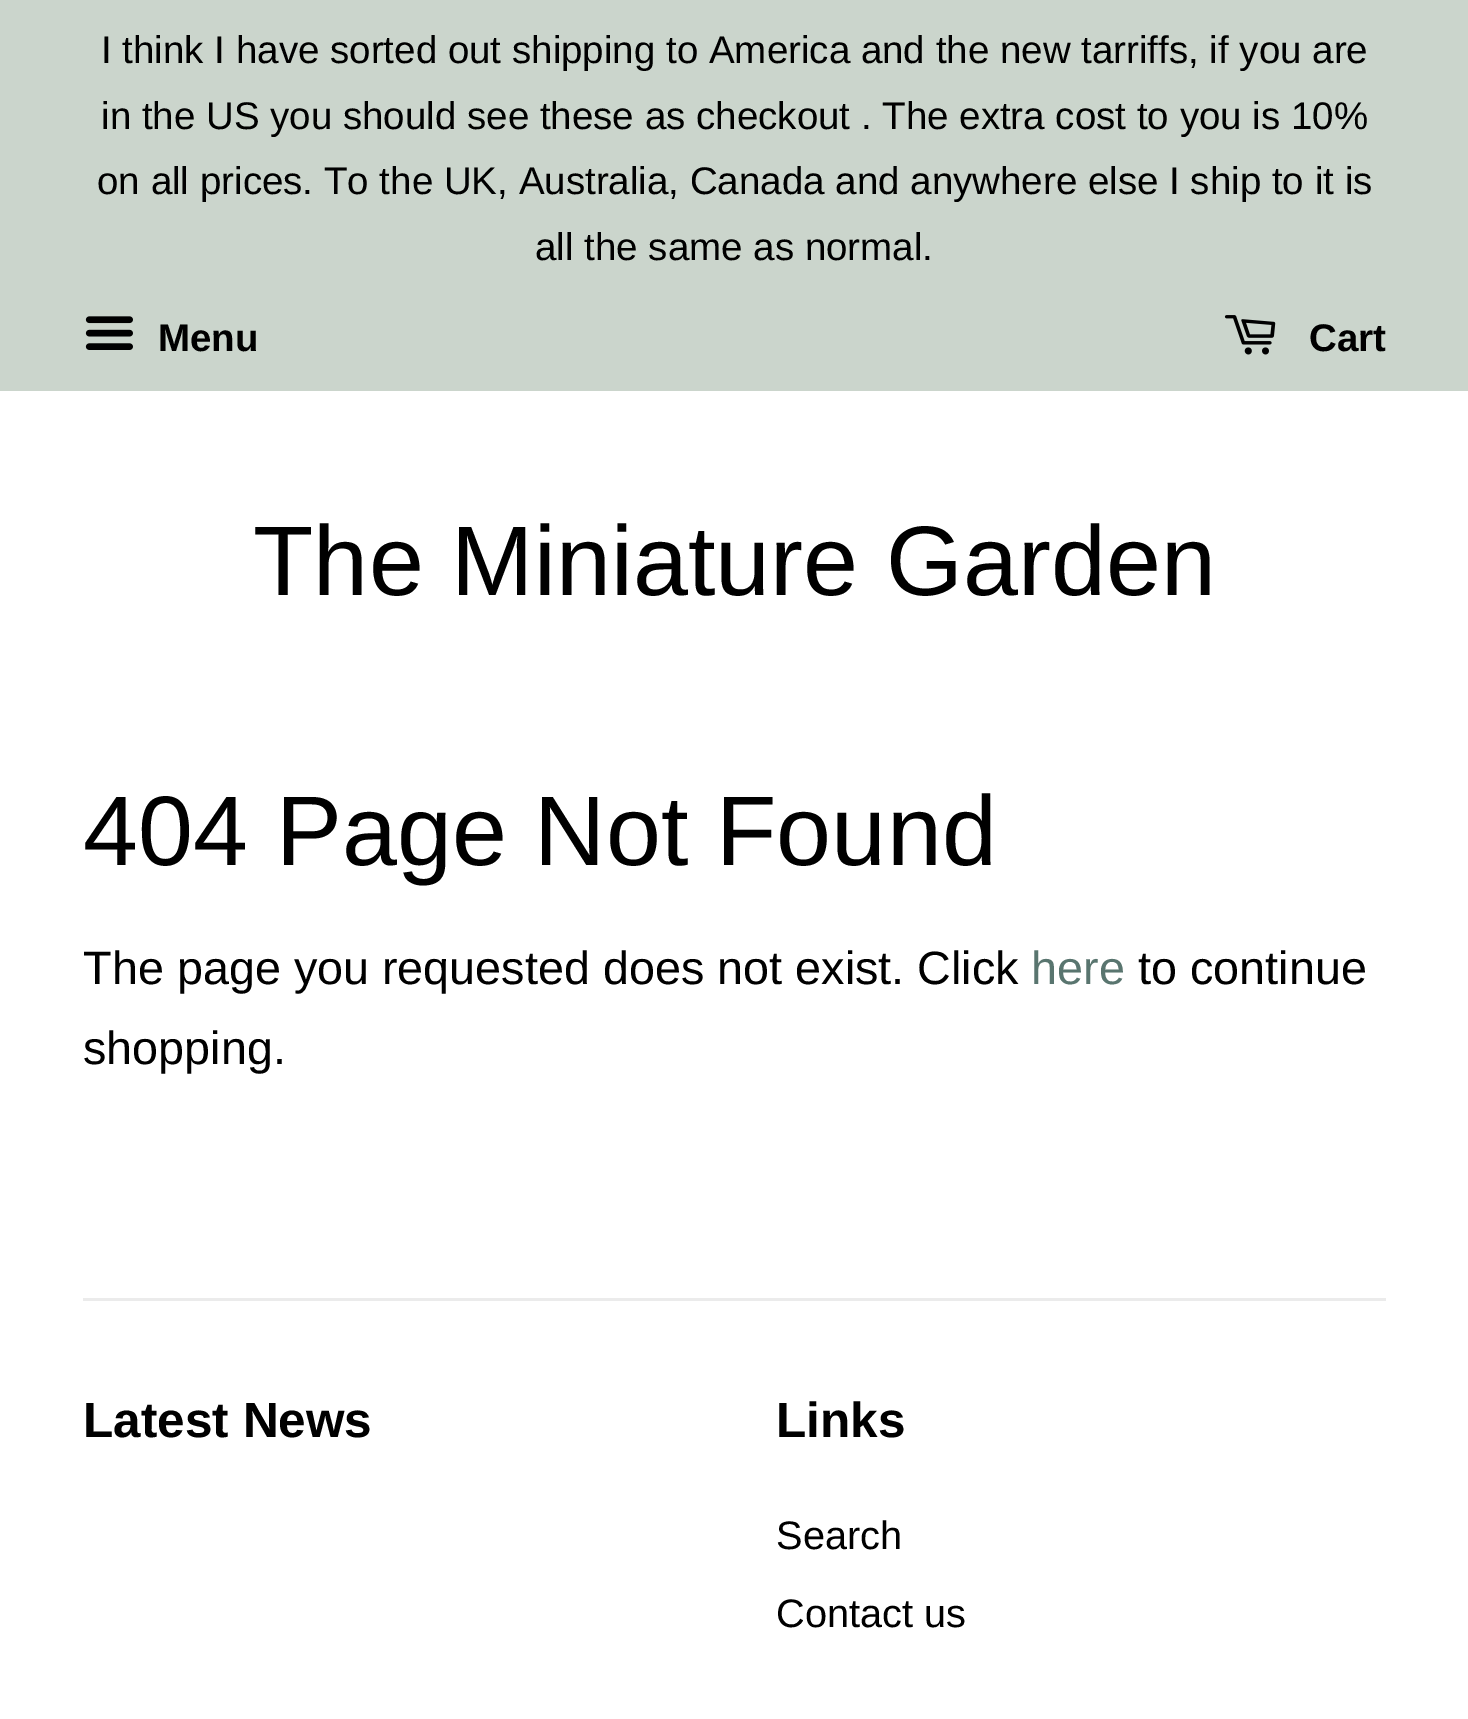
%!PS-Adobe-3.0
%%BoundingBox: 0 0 1468 1719
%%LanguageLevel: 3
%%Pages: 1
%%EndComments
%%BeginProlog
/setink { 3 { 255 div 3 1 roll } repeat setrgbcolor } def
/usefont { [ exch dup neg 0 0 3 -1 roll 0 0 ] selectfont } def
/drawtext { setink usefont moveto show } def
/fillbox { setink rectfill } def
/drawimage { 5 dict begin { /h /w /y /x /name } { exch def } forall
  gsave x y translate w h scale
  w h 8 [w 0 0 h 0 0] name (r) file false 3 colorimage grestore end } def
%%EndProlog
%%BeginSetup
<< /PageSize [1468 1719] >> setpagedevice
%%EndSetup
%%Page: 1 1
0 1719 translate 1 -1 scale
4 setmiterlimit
0 0 1468 1719 255 255 255 fillbox
0 0 1468 391 203 213 204 fillbox
(I think I have sorted out shipping to America and the new tarriffs, if you are) 101 63 /LiberationSans-Regular 38.5 0 0 0 drawtext
(in the US you should see these as checkout . The extra cost to you is 10%) 101 129 /LiberationSans-Regular 38.5 0 0 0 drawtext
(on all prices. To the UK, Australia, Canada and anywhere else I ship to it is) 97 194 /LiberationSans-Regular 38.5 0 0 0 drawtext
(all the same as normal.) 535 260 /LiberationSans-Regular 38.5 0 0 0 drawtext
(assets/img1.rgb) 85 316 48 34 drawimage
(Menu) 158 351 /LiberationSans-Bold 38.5 0 0 0 drawtext
(assets/img2.rgb) 1224 315 52 40 drawimage
(Cart) 1309 351 /LiberationSans-Bold 38.5 0 0 0 drawtext
(The Miniature Garden) 253 595 /LiberationSans-Regular 99 0 0 0 drawtext
(404 Page Not Found) 83 865 /LiberationSans-Regular 99 0 0 0 drawtext
(The page you requested does not exist. Click) 83 984 /LiberationSans-Regular 46.75 0 0 0 drawtext
(here) 1031 984 /LiberationSans-Regular 46.75 89 117 111 drawtext
(to continue) 1138 984 /LiberationSans-Regular 46.75 0 0 0 drawtext
(shopping.) 83 1064 /LiberationSans-Regular 46.75 0 0 0 drawtext
83 1298 1303 3 235 235 235 fillbox
(Latest News) 83 1437 /LiberationSans-Bold 49.5 0 0 0 drawtext
(Links) 776 1437 /LiberationSans-Bold 49.5 0 0 0 drawtext
(Search) 776 1549 /LiberationSans-Regular 39.75 0 0 0 drawtext
(Contact us) 776 1627 /LiberationSans-Regular 39.75 0 0 0 drawtext
showpage
%%EOF
